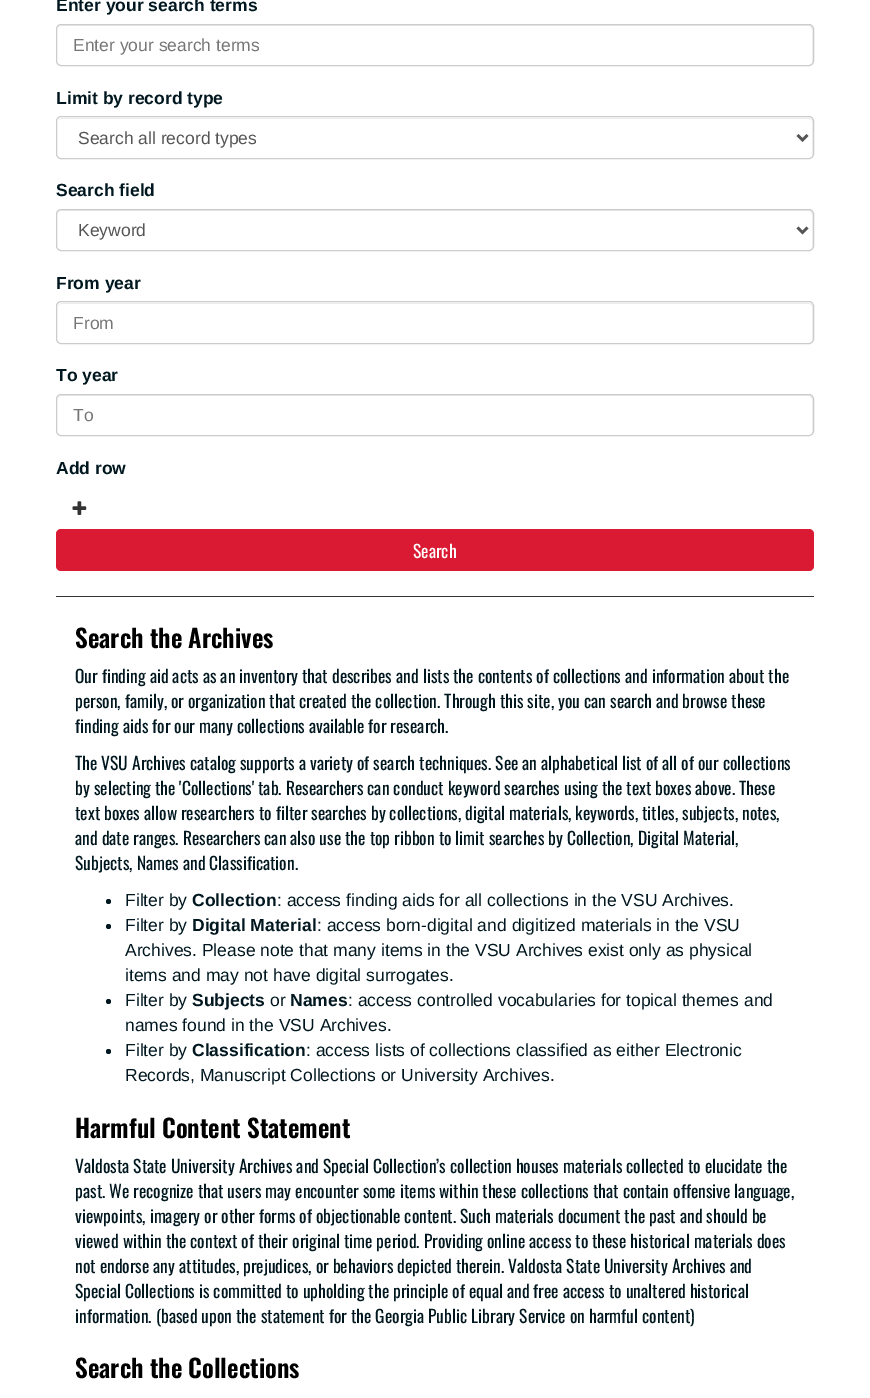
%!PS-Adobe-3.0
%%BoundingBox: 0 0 870 1398
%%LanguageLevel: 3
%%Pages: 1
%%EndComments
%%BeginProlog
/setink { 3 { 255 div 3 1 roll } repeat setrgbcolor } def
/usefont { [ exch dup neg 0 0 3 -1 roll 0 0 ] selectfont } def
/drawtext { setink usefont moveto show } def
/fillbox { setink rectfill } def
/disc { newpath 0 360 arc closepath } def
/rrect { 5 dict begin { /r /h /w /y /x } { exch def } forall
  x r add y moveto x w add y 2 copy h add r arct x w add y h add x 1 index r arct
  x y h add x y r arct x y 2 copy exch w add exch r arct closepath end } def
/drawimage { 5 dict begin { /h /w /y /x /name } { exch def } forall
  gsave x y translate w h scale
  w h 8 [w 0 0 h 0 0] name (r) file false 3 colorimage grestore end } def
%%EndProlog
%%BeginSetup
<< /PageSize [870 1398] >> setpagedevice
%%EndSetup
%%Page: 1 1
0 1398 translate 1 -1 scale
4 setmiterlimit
0 0 870 1398 255 255 255 fillbox
(Enter your search terms) 56 11 /LiberationSans-Bold 17.5 0 23 31 drawtext
236 236 236 setink
61 26 moveto 809 26 lineto 811 26 812 28 812 30 curveto 812 64 lineto 813 63 813 62 813 61 curveto 813 29 lineto 813 27 811 25 809 25 curveto 62 25 lineto 60 25 58 27 58 29 curveto 58 30 lineto 58 28 59 26 61 26 curveto closepath fill
204 204 204 setink
56.5 24.5 757 41 4.5 rrect stroke
(Enter your search terms) 73 51 /LiberationSans-Regular 17.5 118 118 118 drawtext
(Limit by record type) 56 104 /LiberationSans-Bold 17.5 0 23 31 drawtext
236 236 236 setink
61 119 moveto 809 119 lineto 811 119 812 120 812 122 curveto 812 157 lineto 812 156 813 155 813 154 curveto 813 122 lineto 813 120 811 118 809 118 curveto 62 118 lineto 61 118 59 119 59 120 curveto closepath fill
204 204 204 setink
56.5 116.5 757 42 4.5 rrect stroke
85 85 85 setink
2.5 setlinewidth
797.5 135 moveto 802.5 140 lineto 807.5 135 lineto stroke
(Search all record types) 78 144 /LiberationSans-Regular 17.5 85 85 85 drawtext
(Search field) 56 196 /LiberationSans-Bold 17.5 0 23 31 drawtext
236 236 236 setink
61 211 moveto 809 211 lineto 811 211 812 213 812 215 curveto 812 249 lineto 813 248 813 247 813 246 curveto 813 214 lineto 813 212 811 210 809 210 curveto 62 210 lineto 60 210 58 212 58 214 curveto 58 215 lineto 58 213 59 211 61 211 curveto closepath fill
204 204 204 setink
1 setlinewidth
56.5 209.5 757 41 4.5 rrect stroke
85 85 85 setink
2.5 setlinewidth
797.5 227.5 moveto 802.5 232.5 lineto 807.5 227.5 lineto stroke
(Keyword) 78 236 /LiberationSans-Regular 17.5 85 85 85 drawtext
(From year) 56 289 /LiberationSans-Bold 17.5 0 23 31 drawtext
236 236 236 setink
61 304 moveto 809 304 lineto 811 304 812 305 812 308 curveto 812 342 lineto 812 341 813 340 813 339 curveto 813 307 lineto 813 305 811 303 809 303 curveto 62 303 lineto 60 303 58 305 58 307 curveto 58 308 lineto 58 305 59 304 61 304 curveto closepath fill
204 204 204 setink
1 setlinewidth
56.5 301.5 757 42 4.5 rrect stroke
(From) 73 329 /LiberationSans-Regular 17.5 118 118 118 drawtext
(To year) 56 381 /LiberationSans-Bold 17.5 0 23 31 drawtext
236 236 236 setink
61 396 moveto 809 396 lineto 811 396 812 398 812 400 curveto 812 434 lineto 813 433 813 432 813 431 curveto 813 399 lineto 813 397 811 395 809 395 curveto 62 395 lineto 60 395 58 397 58 399 curveto 58 400 lineto 58 398 59 396 61 396 curveto closepath fill
204 204 204 setink
56.5 394.5 757 41 4.5 rrect stroke
(To) 73 421 /LiberationSans-Regular 17.5 118 118 118 drawtext
(Add row) 56 474 /LiberationSans-Bold 17.5 0 23 31 drawtext
(assets/img1.rgb) 72 501 15 14 drawimage
218 26 50 setink
56 529 758 42 5 rrect fill
(Search) 413 558 /Oswald-Regular 17.5 255 255 255 drawtext
56 596 758 1 51 51 51 fillbox
(Search the Archives) 75 648 /Oswald-SemiBold 25 0 0 0 drawtext
(Our finding aid acts as an inventory that describes and lists the contents of collections and information about the) 75 683 /Oswald-Regular 17.5 0 23 31 drawtext
(person, family, or organization that created the collection. Through this site, you can search and browse these) 75 708 /Oswald-Regular 17.5 0 23 31 drawtext
(finding aids for our many collections available for research.) 75 733 /Oswald-Regular 17.5 0 23 31 drawtext
(The VSU Archives catalog supports a variety of search techniques. See an alphabetical list of all of our collections) 75 770 /Oswald-Regular 17.5 0 23 31 drawtext
(by selecting the 'Collections' tab. Researchers can conduct keyword searches using the text boxes above. These) 75 795 /Oswald-Regular 17.5 0 23 31 drawtext
(text boxes allow researchers to filter searches by collections, digital materials, keywords, titles, subjects, notes,) 75 820 /Oswald-Regular 17.5 0 23 31 drawtext
(and date ranges. Researchers can also use the top ribbon to limit searches by Collection, Digital Material,) 75 845 /Oswald-Regular 17.5 0 23 31 drawtext
(Subjects, Names and Classification.) 75 870 /Oswald-Regular 17.5 0 23 31 drawtext
108.5 901.5 2.5 disc fill
(Filter by) 125 906 /LiberationSans-Regular 17.5 0 23 31 drawtext
(Collection) 192 906 /LiberationSans-Bold 17.5 0 23 31 drawtext
(: access finding aids for all collections in the VSU Archives.) 277 906 /LiberationSans-Regular 17.5 0 23 31 drawtext
108.5 926.5 2.5 disc fill
(Filter by) 125 931 /LiberationSans-Regular 17.5 0 23 31 drawtext
(Digital Material) 192 931 /LiberationSans-Bold 17.5 0 23 31 drawtext
(: access born-digital and digitized materials in the VSU) 317 931 /LiberationSans-Regular 17.5 0 23 31 drawtext
(Archives. Please note that many items in the VSU Archives exist only as physical) 125 956 /LiberationSans-Regular 17.5 0 23 31 drawtext
(items and may not have digital surrogates.) 125 981 /LiberationSans-Regular 17.5 0 23 31 drawtext
108.5 1001.5 2.5 disc fill
(Filter by) 125 1006 /LiberationSans-Regular 17.5 0 23 31 drawtext
(Subjects) 192 1006 /LiberationSans-Bold 17.5 0 23 31 drawtext
(or) 270 1006 /LiberationSans-Regular 17.5 0 23 31 drawtext
(Names) 290 1006 /LiberationSans-Bold 17.5 0 23 31 drawtext
(: access controlled vocabularies for topical themes and) 348 1006 /LiberationSans-Regular 17.5 0 23 31 drawtext
(names found in the VSU Archives.) 125 1031 /LiberationSans-Regular 17.5 0 23 31 drawtext
108.5 1051.5 2.5 disc fill
(Filter by) 125 1056 /LiberationSans-Regular 17.5 0 23 31 drawtext
(Classification) 192 1056 /LiberationSans-Bold 17.5 0 23 31 drawtext
(: access lists of collections classified as either Electronic) 306 1056 /LiberationSans-Regular 17.5 0 23 31 drawtext
(Records, Manuscript Collections or University Archives.) 125 1081 /LiberationSans-Regular 17.5 0 23 31 drawtext
(Harmful Content Statement) 75 1138 /Oswald-SemiBold 25 0 0 0 drawtext
(Valdosta State University Archives and Special Collection’s collection houses materials collected to elucidate the) 75 1173 /Oswald-Regular 17.5 0 23 31 drawtext
(past. We recognize that users may encounter some items within these collections that contain offensive language,) 75 1198 /Oswald-Regular 17.5 0 23 31 drawtext
(viewpoints, imagery or other forms of objectionable content. Such materials document the past and should be) 75 1223 /Oswald-Regular 17.5 0 23 31 drawtext
(viewed within the context of their original time period. Providing online access to these historical materials does) 75 1248 /Oswald-Regular 17.5 0 23 31 drawtext
(not endorse any attitudes, prejudices, or behaviors depicted therein. Valdosta State University Archives and) 75 1273 /Oswald-Regular 17.5 0 23 31 drawtext
(Special Collections is committed to upholding the principle of equal and free access to unaltered historical) 75 1298 /Oswald-Regular 17.5 0 23 31 drawtext
(information. \(based upon the statement for the Georgia Public Library Service on harmful content\)) 75 1323 /Oswald-Regular 17.5 0 23 31 drawtext
(Search the Collections) 75 1378 /Oswald-SemiBold 25 0 0 0 drawtext
showpage
%%EOF
